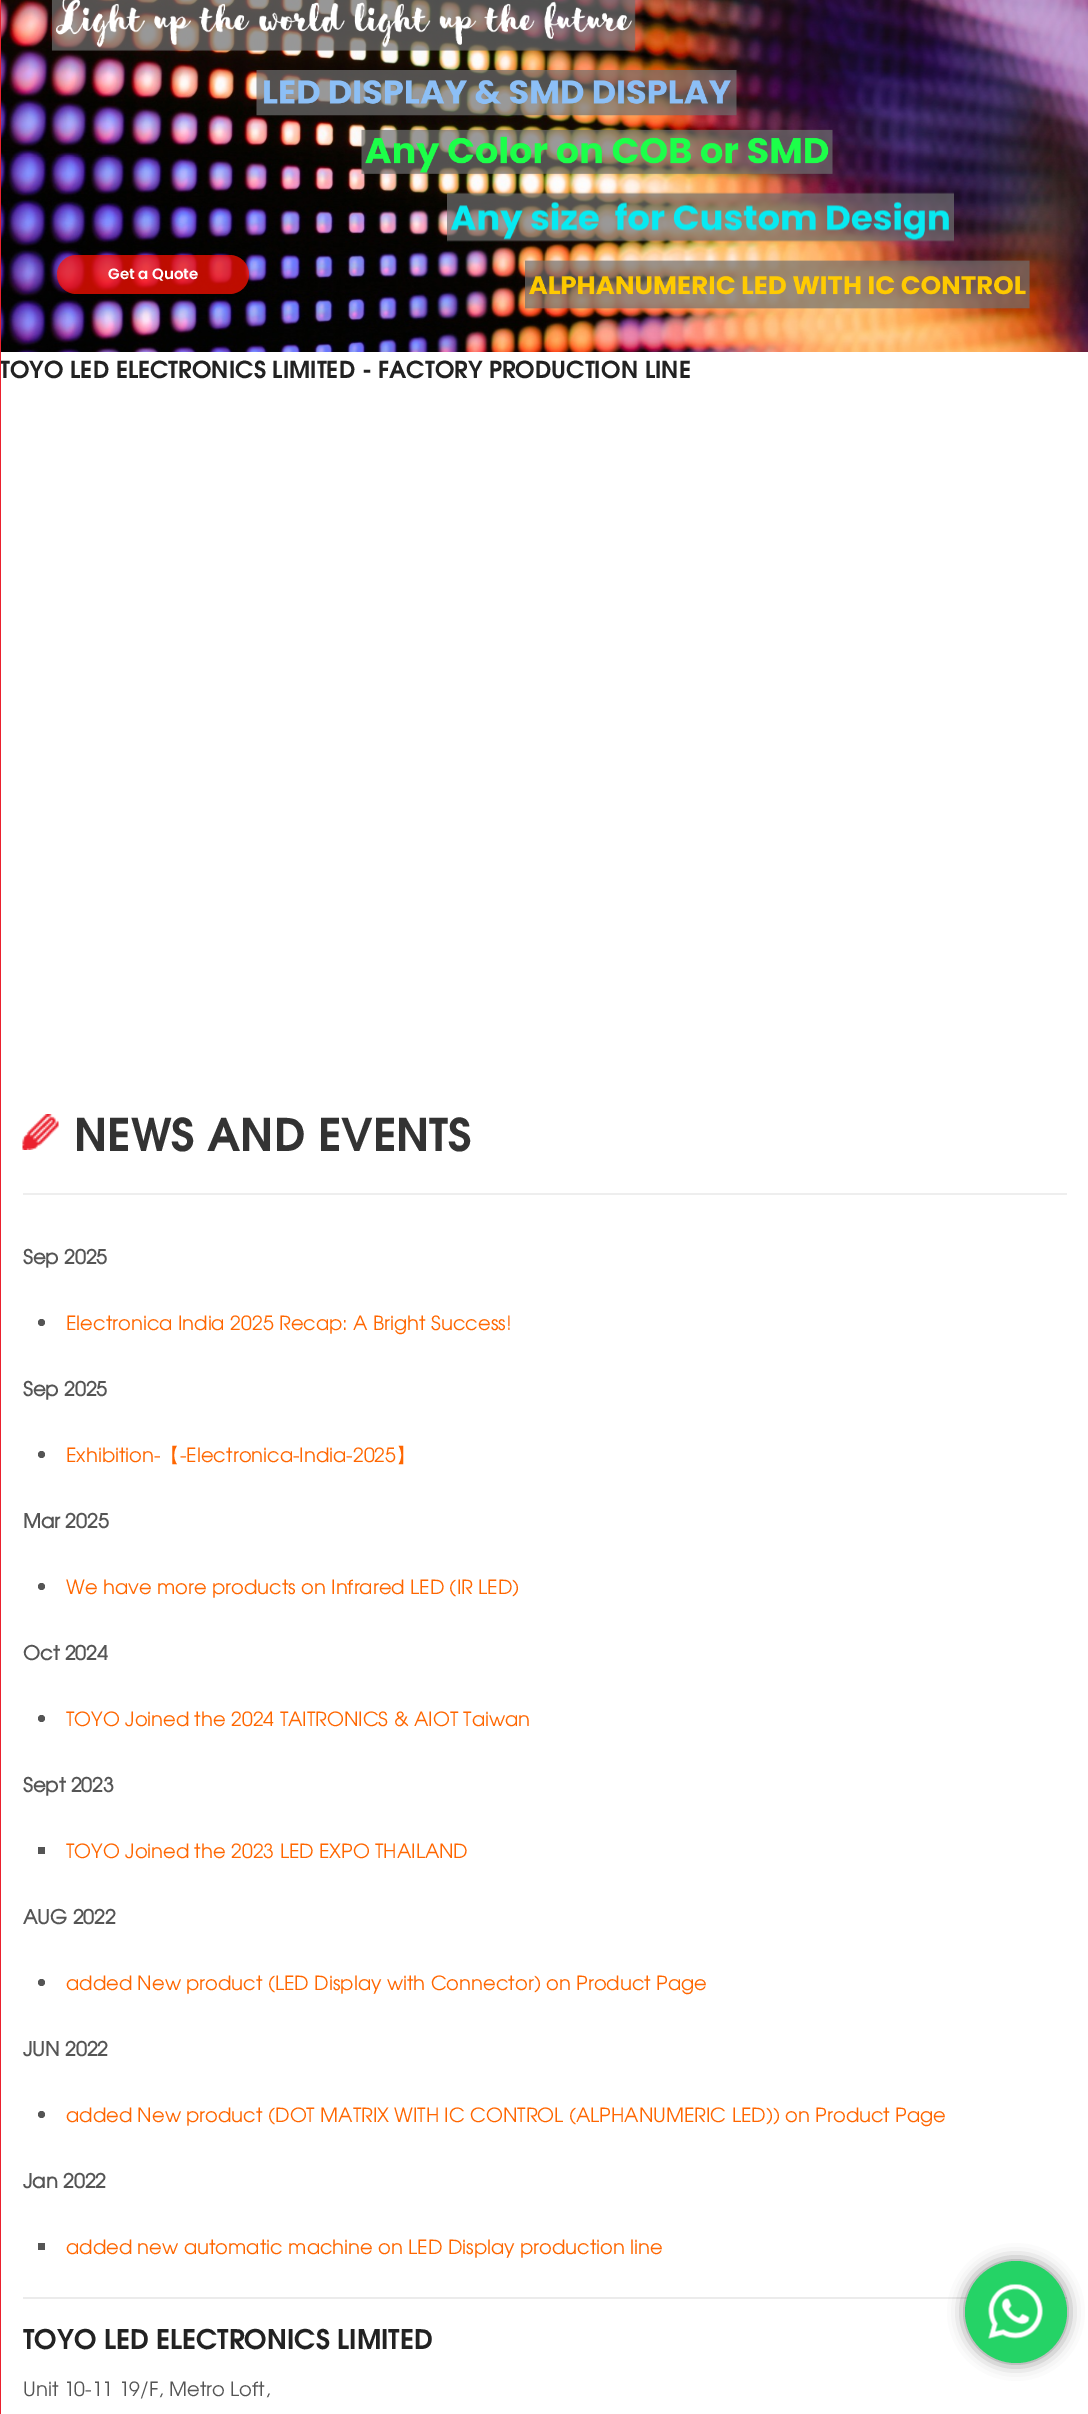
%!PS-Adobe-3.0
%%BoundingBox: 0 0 1088 2414
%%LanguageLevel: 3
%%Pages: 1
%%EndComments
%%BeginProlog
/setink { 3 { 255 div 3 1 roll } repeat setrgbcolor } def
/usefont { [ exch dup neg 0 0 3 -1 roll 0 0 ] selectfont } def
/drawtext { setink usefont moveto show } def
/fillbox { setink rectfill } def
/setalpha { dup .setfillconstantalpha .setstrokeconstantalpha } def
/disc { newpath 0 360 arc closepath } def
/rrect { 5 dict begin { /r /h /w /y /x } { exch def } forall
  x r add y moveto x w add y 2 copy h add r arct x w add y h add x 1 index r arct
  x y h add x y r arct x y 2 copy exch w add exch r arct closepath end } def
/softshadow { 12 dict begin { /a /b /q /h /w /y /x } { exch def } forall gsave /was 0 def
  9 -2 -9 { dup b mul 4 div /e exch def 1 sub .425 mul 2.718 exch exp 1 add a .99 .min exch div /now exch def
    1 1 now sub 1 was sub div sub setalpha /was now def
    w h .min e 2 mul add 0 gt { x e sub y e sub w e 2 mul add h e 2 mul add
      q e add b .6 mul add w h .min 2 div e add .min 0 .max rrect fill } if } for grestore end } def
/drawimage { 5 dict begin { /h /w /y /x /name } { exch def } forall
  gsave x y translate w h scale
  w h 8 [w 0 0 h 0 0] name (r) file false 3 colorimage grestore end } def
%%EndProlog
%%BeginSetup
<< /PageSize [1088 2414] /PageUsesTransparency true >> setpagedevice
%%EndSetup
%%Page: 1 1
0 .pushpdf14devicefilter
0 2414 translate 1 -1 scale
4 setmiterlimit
0 0 1088 2414 255 255 255 fillbox
(TOYO LED ELECTRONICS LIMITED - FACTORY PRODUCTION LINE) 0 378 /TeXGyreAdventor-Bold 23.4 34 34 34 drawtext
0 0 1 2414 235 32 46 fillbox
(assets/img1.rgb) 1 0 1087 352 drawimage
(assets/img2.rgb) 51 0 585 51 drawimage
(assets/img3.rgb) 256 70 481 46 drawimage
(assets/img4.rgb) 361 129 472 45 drawimage
(assets/img5.rgb) 447 192 507 50 drawimage
gsave
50 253 moveto 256 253 lineto 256 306 lineto 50 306 lineto closepath 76.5 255 moveto 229.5 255 lineto 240.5 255 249 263.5 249 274.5 curveto 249 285.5 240.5 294 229.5 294 curveto 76.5 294 lineto 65.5 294 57 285.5 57 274.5 curveto 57 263.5 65.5 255 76.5 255 curveto closepath eoclip newpath
0 0 0 setink
57 260 192 39 19.5 2 0.25 softshadow
grestore
0.74 setalpha
255 16 0 setink
57 255 192 39 19.5 rrect fill
1 setalpha
(Get a Quote) 108 279 /Poppins-SemiBold 15 255 255 255 drawtext
(assets/img6.rgb) 525 260 505 49 drawimage
23 1193 1044 2 238 238 238 fillbox
(assets/img7.rgb) 22 1114 37 36 drawimage
(NEWS AND EVENTS) 74 1151 /TeXGyreAdventor-Bold 45 51 51 51 drawtext
(Sep 2025) 23 1264 /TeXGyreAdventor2-Bold 19.5 85 85 85 drawtext
41.5 1322.5 3.5 disc fill
(Electronica India 2025 Recap: A Bright Success!) 66 1330 /TeXGyreAdventor-Regular 19.5 255 102 0 drawtext
(Sep 2025) 23 1396 /TeXGyreAdventor2-Bold 19.5 85 85 85 drawtext
41.5 1454.5 3.5 disc fill
(Exhibition-) 66 1462 /TeXGyreAdventor-Regular 19.5 255 102 0 drawtext
(【) 160 1462 /WenQuanYiZenHei-Medium 19.5 255 102 0 drawtext
(-Electronica-India-2025) 180 1462 /TeXGyreAdventor-Regular 19.5 255 102 0 drawtext
(】) 396 1462 /WenQuanYiZenHei-Medium 19.5 255 102 0 drawtext
(Mar 2025) 23 1528 /TeXGyreAdventor2-Bold 19.5 85 85 85 drawtext
41.5 1586.5 3.5 disc fill
(We have more products on Infrared LED \(IR LED\)) 66 1594 /TeXGyreAdventor-Regular 19.5 255 102 0 drawtext
(Oct 2024) 23 1660 /TeXGyreAdventor2-Bold 19.5 85 85 85 drawtext
41.5 1718.5 3.5 disc fill
(TOYO Joined the 2024 TAITRONICS & AIOT Taiwan) 66 1726 /TeXGyreAdventor-Regular 19.5 255 102 0 drawtext
(Sept 2023) 23 1792 /TeXGyreAdventor2-Bold 19.5 85 85 85 drawtext
38 1847 7 7 85 85 85 fillbox
(TOYO Joined the 2023 LED EXPO THAILAND) 66 1858 /TeXGyreAdventor-Regular 19.5 255 102 0 drawtext
(AUG 2022) 23 1924 /TeXGyreAdventor2-Bold 19.5 85 85 85 drawtext
41.5 1982.5 3.5 disc fill
(added New product \(LED Display with Connector\) on Product Page) 66 1990 /TeXGyreAdventor-Regular 19.5 255 102 0 drawtext
(JUN 2022) 23 2056 /TeXGyreAdventor2-Bold 19.5 85 85 85 drawtext
41.5 2114.5 3.5 disc fill
(added New product \(DOT MATRIX WITH IC CONTROL \(ALPHANUMERIC LED\)\) on Product Page) 66 2122 /TeXGyreAdventor-Regular 19.5 255 102 0 drawtext
(Jan 2022) 23 2188 /TeXGyreAdventor2-Bold 19.5 85 85 85 drawtext
38 2243 7 7 85 85 85 fillbox
(added new automatic machine on LED Display production line) 66 2254 /TeXGyreAdventor-Regular 19.5 255 102 0 drawtext
23 2297 1044 2 235 235 235 fillbox
(TOYO LED ELECTRONICS LIMITED) 23 2349 /TeXGyreAdventor-Bold 27 34 34 34 drawtext
(Unit 10-11 19/F, Metro Loft,) 23 2396 /TeXGyreAdventor-Regular 19.5 85 85 85 drawtext
0 0 0 setink
965 2261 102 102 51 8 0.5 softshadow
37 211 102 setink
1016 2312 51 disc fill
(assets/img8.rgb) 988 2284 55 55 drawimage
.poppdf14devicefilter showpage
%%EOF
